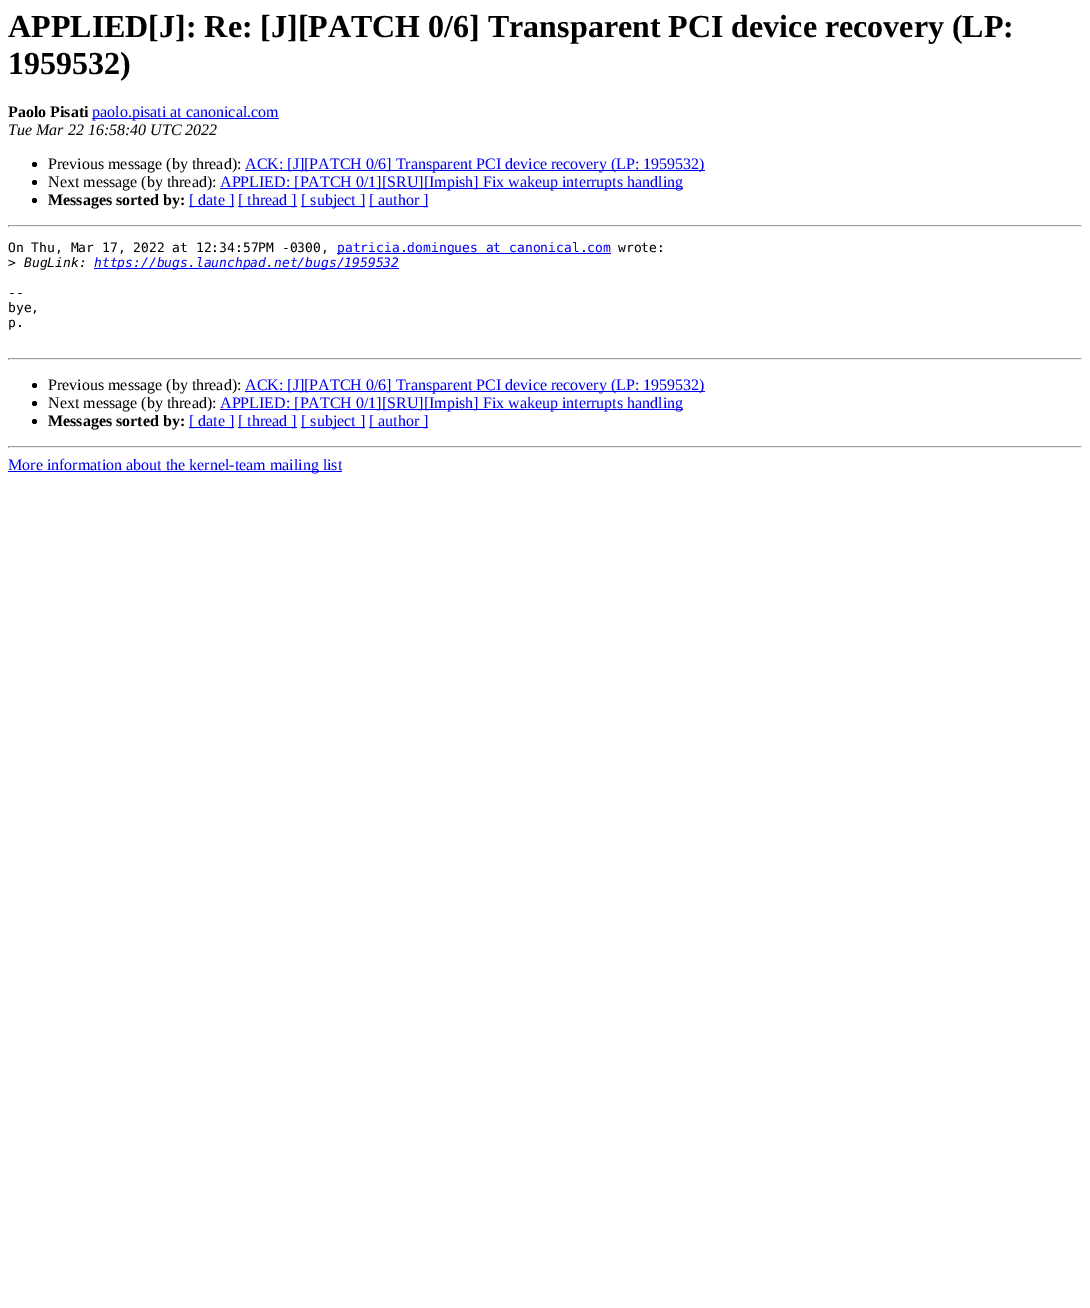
%!PS-Adobe-3.0
%%BoundingBox: 0 0 1090 1308
%%LanguageLevel: 3
%%Pages: 1
%%EndComments
%%BeginProlog
/setink { 3 { 255 div 3 1 roll } repeat setrgbcolor } def
/usefont { [ exch dup neg 0 0 3 -1 roll 0 0 ] selectfont } def
/drawtext { setink usefont moveto show } def
/fillbox { setink rectfill } def
/disc { newpath 0 360 arc closepath } def
%%EndProlog
%%BeginSetup
<< /PageSize [1090 1308] >> setpagedevice
%%EndSetup
%%Page: 1 1
0 1308 translate 1 -1 scale
4 setmiterlimit
0 0 1090 1308 255 255 255 fillbox
(APPLIED[J]: Re: [J][PATCH 0/6] Transparent PCI device recovery \(LP:) 8 37 /LiberationSerif-Bold 32 0 0 0 drawtext
(1959532\)) 8 74 /LiberationSerif-Bold 32 0 0 0 drawtext
(Paolo Pisati) 8 117 /LiberationSerif-Bold 16 0 0 0 drawtext
92 118 187 1 0 0 238 fillbox
(paolo.pisati at canonical.com) 92 117 /LiberationSerif-Regular 16 0 0 238 drawtext
(Tue Mar 22 16:58:40 UTC 2022) 8 135 /LiberationSerif-Italic 16 0 0 0 drawtext
34.5 164.5 2.5 disc fill
(Previous message \(by thread\):) 48 169 /LiberationSerif-Regular 16 0 0 0 drawtext
245 170 460 1 0 0 238 fillbox
(ACK: [J][PATCH 0/6] Transparent PCI device recovery \(LP: 1959532\)) 245 169 /LiberationSerif-Regular 16 0 0 238 drawtext
0 0 0 setink
34.5 182.5 2.5 disc fill
(Next message \(by thread\):) 48 187 /LiberationSerif-Regular 16 0 0 0 drawtext
220 188 463 1 0 0 238 fillbox
(APPLIED: [PATCH 0/1][SRU][Impish] Fix wakeup interrupts handling) 220 187 /LiberationSerif-Regular 16 0 0 238 drawtext
0 0 0 setink
34.5 200.5 2.5 disc fill
(Messages sorted by:) 48 205 /LiberationSerif-Bold 16 0 0 0 drawtext
189 206 45 1 0 0 238 fillbox
([ date ]) 189 205 /LiberationSerif-Regular 16 0 0 238 drawtext
238 206 59 1 0 0 238 fillbox
([ thread ]) 238 205 /LiberationSerif-Regular 16 0 0 238 drawtext
301 206 64 1 0 0 238 fillbox
([ subject ]) 301 205 /LiberationSerif-Regular 16 0 0 238 drawtext
369 206 59 1 0 0 238 fillbox
([ author ]) 369 205 /LiberationSerif-Regular 16 0 0 238 drawtext
8 225 1074 1 159 159 159 fillbox
1081 225 1 2 238 238 238 fillbox
8 226 1074 1 238 238 238 fillbox
8 225 1 2 159 159 159 fillbox
(On Thu, Mar 17, 2022 at 12:34:57PM -0300,) 8 252 /DejaVuSansMono-Regular 13 0 0 0 drawtext
337 253 274 1 0 0 238 fillbox
(patricia.domingues at canonical.com) 337 252 /DejaVuSansMono-Regular 13 0 0 238 drawtext
(wrote:) 618 252 /DejaVuSansMono-Regular 13 0 0 0 drawtext
(>) 8 267 /DejaVuSansMono-Regular 13 0 0 0 drawtext
(BugLink:) 24 267 /DejaVuSansMono-Italic 13 0 0 0 drawtext
94 268 305 1 0 0 238 fillbox
(https://bugs.launchpad.net/bugs/1959532) 94 267 /DejaVuSansMono-Italic 13 0 0 238 drawtext
(--) 8 297 /DejaVuSansMono-Regular 13 0 0 0 drawtext
(bye,) 8 312 /DejaVuSansMono-Regular 13 0 0 0 drawtext
(p.) 8 327 /DejaVuSansMono-Regular 13 0 0 0 drawtext
8 358 1074 1 159 159 159 fillbox
1081 358 1 2 238 238 238 fillbox
8 359 1074 1 238 238 238 fillbox
8 358 1 2 159 159 159 fillbox
0 0 0 setink
34.5 385.5 2.5 disc fill
(Previous message \(by thread\):) 48 390 /LiberationSerif-Regular 16 0 0 0 drawtext
245 391 460 1 0 0 238 fillbox
(ACK: [J][PATCH 0/6] Transparent PCI device recovery \(LP: 1959532\)) 245 390 /LiberationSerif-Regular 16 0 0 238 drawtext
0 0 0 setink
34.5 403.5 2.5 disc fill
(Next message \(by thread\):) 48 408 /LiberationSerif-Regular 16 0 0 0 drawtext
220 409 463 1 0 0 238 fillbox
(APPLIED: [PATCH 0/1][SRU][Impish] Fix wakeup interrupts handling) 220 408 /LiberationSerif-Regular 16 0 0 238 drawtext
0 0 0 setink
34.5 421.5 2.5 disc fill
(Messages sorted by:) 48 426 /LiberationSerif-Bold 16 0 0 0 drawtext
189 427 45 1 0 0 238 fillbox
([ date ]) 189 426 /LiberationSerif-Regular 16 0 0 238 drawtext
238 427 59 1 0 0 238 fillbox
([ thread ]) 238 426 /LiberationSerif-Regular 16 0 0 238 drawtext
301 427 64 1 0 0 238 fillbox
([ subject ]) 301 426 /LiberationSerif-Regular 16 0 0 238 drawtext
369 427 59 1 0 0 238 fillbox
([ author ]) 369 426 /LiberationSerif-Regular 16 0 0 238 drawtext
8 446 1074 1 159 159 159 fillbox
1081 446 1 2 238 238 238 fillbox
8 447 1074 1 238 238 238 fillbox
8 446 1 2 159 159 159 fillbox
8 471 334 1 0 0 238 fillbox
(More information about the kernel-team mailing list) 8 470 /LiberationSerif-Regular 16 0 0 238 drawtext
showpage
%%EOF
